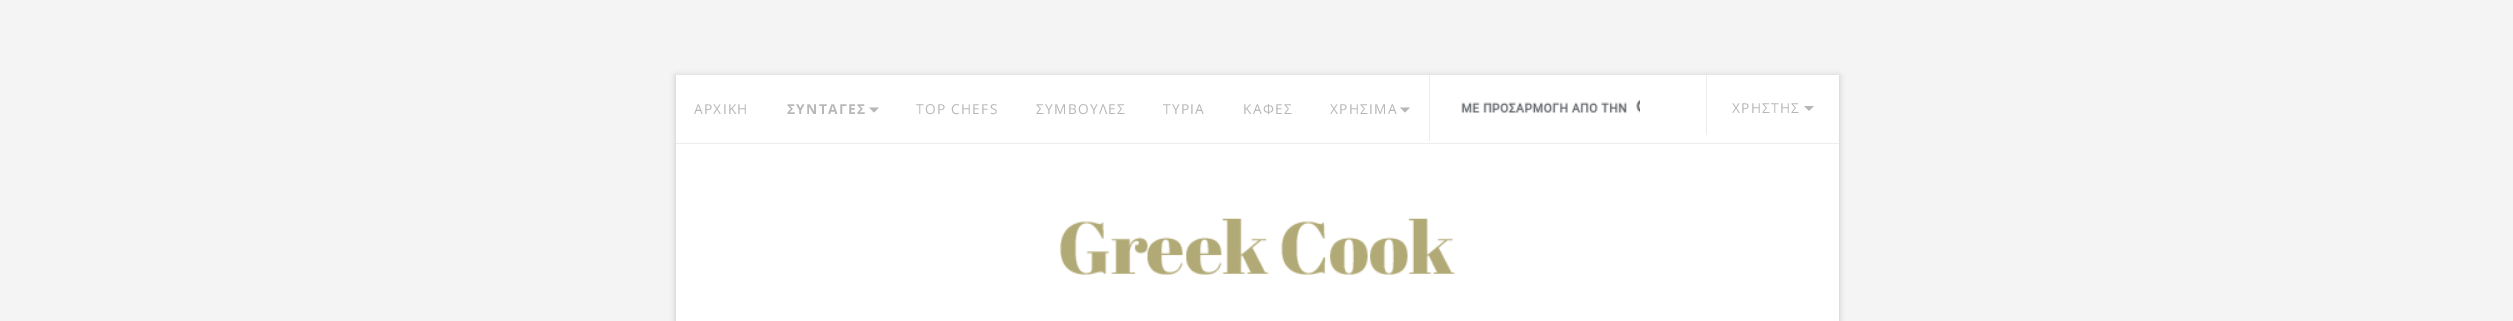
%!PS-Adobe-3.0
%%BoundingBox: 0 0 2513 321
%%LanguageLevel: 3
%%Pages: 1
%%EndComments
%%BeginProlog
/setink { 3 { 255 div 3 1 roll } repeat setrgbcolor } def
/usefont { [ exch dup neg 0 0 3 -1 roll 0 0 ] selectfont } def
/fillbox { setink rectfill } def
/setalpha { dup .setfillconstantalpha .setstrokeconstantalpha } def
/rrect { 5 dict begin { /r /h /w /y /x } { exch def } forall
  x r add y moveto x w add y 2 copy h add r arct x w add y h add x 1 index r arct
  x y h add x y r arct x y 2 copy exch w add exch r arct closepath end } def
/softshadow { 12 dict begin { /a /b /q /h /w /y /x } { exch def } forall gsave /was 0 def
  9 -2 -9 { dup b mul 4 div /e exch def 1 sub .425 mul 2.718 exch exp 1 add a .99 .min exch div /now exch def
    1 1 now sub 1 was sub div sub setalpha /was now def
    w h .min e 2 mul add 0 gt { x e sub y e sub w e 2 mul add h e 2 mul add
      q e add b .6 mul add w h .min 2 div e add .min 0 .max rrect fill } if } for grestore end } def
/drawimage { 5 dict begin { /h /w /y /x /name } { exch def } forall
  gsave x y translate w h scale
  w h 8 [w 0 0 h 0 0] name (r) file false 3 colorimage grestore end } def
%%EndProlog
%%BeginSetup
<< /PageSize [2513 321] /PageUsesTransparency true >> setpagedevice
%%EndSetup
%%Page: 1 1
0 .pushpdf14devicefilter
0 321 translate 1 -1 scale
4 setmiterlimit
0 0 2513 321 244 244 244 fillbox
0 0 0 setink
676 76 1163 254 0 3 0.2 softshadow
676 75 1163 246 255 255 255 fillbox
676 143 1163 1 237 237 237 fillbox
/OpenSans-Regular 13.75 usefont
183 183 183 setink
694 114 moveto 1.25 0 (ΑΡΧΙΚΗ) ashow
/OpenSans-Bold 13.75 usefont
787 114 moveto 1.25 0 (ΣΥΝΤΑΓΕΣ) ashow
869 107.5 moveto 879 107.5 lineto 874 112.5 lineto closepath fill
/OpenSans-Regular 13.75 usefont
916 114 moveto 1.25 0 (TOP CHEFS) ashow
1036 114 moveto 1.25 0 (ΣΥΜΒΟΥΛΕΣ) ashow
1163 114 moveto 1.25 0 (ΤΥΡΙΑ) ashow
1243 114 moveto 1.25 0 (ΚΑΦΕΣ) ashow
1330 114 moveto 1.25 0 (ΧΡΗΣΙΜΑ) ashow
1400 107.5 moveto 1410 107.5 lineto 1405 112.5 lineto closepath fill
1429 75 1 66 237 237 237 fillbox
(assets/img1.rgb) 1461 99 179 14 drawimage
1706 75 1 60 237 237 237 fillbox
183 183 183 setink
1732 113 moveto 1.25 0 (ΧΡΗΣΤΗΣ) ashow
1804 106 moveto 1814 106 lineto 1809 111 lineto closepath fill
(assets/img2.rgb) 1060 218 395 57 drawimage
.poppdf14devicefilter showpage
%%EOF
